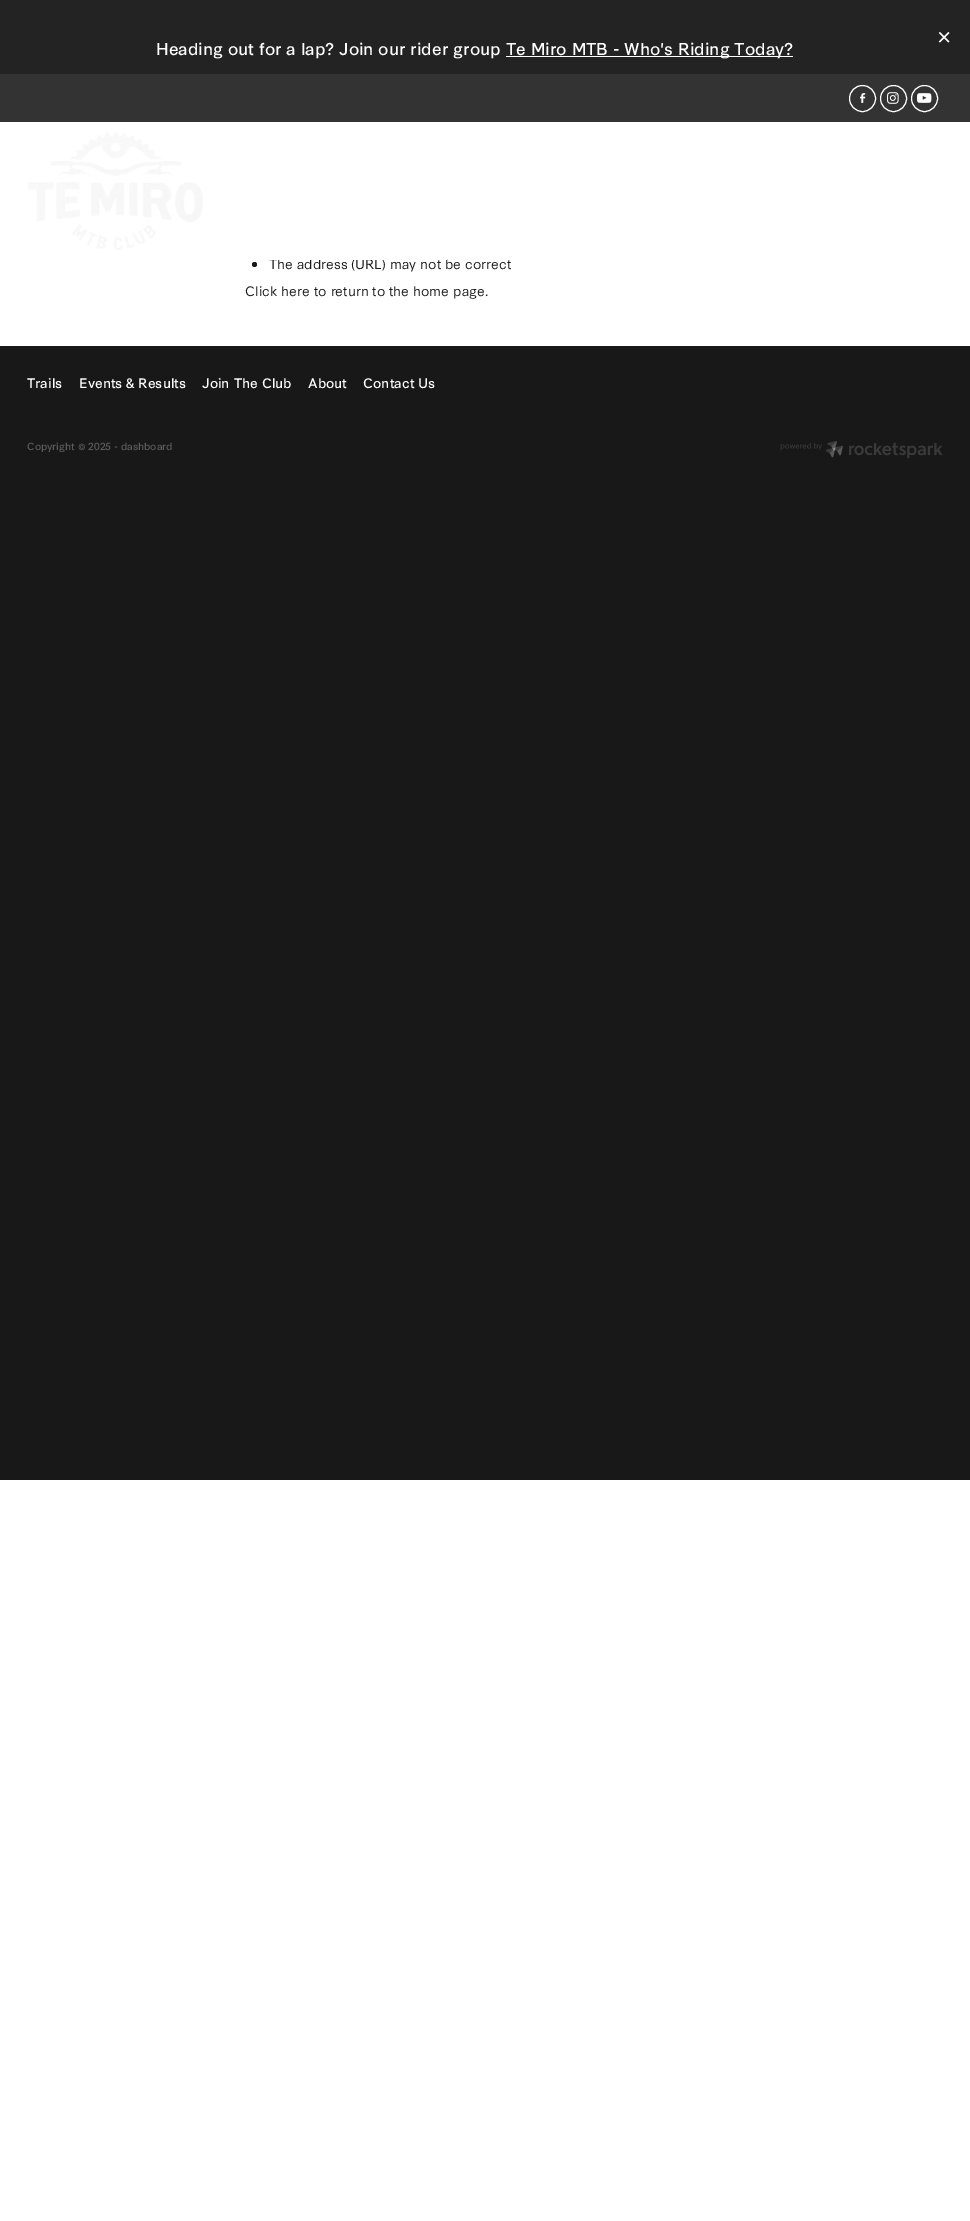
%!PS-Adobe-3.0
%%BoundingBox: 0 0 970 2221
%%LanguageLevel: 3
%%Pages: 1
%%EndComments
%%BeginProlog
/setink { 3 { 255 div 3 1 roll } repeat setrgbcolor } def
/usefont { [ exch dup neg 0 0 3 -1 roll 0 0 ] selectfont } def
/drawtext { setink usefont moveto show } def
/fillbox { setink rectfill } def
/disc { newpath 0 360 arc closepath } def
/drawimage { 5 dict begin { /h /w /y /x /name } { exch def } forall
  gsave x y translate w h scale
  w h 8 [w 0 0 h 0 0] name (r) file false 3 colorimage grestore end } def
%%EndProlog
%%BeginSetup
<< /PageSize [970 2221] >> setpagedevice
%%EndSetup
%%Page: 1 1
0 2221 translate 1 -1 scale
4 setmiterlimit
0 0 970 2221 255 255 255 fillbox
0 0 970 74 35 35 35 fillbox
(assets/img1.rgb) 938 31 12 12 drawimage
(Heading out for a lap? Join our rider group) 156 55 /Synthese-Regular 16.25 255 255 255 drawtext
506 56 287 1 255 255 255 fillbox
(Te Miro MTB - Who's Riding Today?) 506 55 /Synthese-Regular 16.25 255 255 255 drawtext
0 74 970 48 51 51 51 fillbox
255 255 255 setink
862.5 98.5 13 disc stroke
(assets/img2.rgb) 860 93 6 10 drawimage
893.5 98.5 13 disc stroke
(assets/img3.rgb) 887 92 12 12 drawimage
924.5 98.5 13 disc stroke
(assets/img4.rgb) 917 93 15 10 drawimage
(The address \(URL\) may not be correct) 269 269 /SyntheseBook-Regular 13 24 24 24 drawtext
269 259 178 1 255 255 255 fillbox
(assets/img5.rgb) 28 132 175 118 drawimage
24 24 24 setink
254.5 264.5 2.5 disc fill
(Click here to return to the home page.) 245 296 /SyntheseBook-Regular 13 24 24 24 drawtext
0 346 970 134 24 24 24 fillbox
(Trails) 27 388 /Synthese-Regular 13 255 255 255 drawtext
(Events & Results) 79 388 /Synthese-Regular 13 255 255 255 drawtext
(Join The Club) 202 388 /Synthese-Regular 13 255 255 255 drawtext
(About) 308 388 /Synthese-Regular 13 255 255 255 drawtext
(Contact Us) 363 388 /Synthese-Regular 13 255 255 255 drawtext
24 24 24 setink
-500 420 moveto -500 1480 lineto 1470 1480 lineto 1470 420 lineto 970 420 lineto 970 480 lineto 0 480 lineto 0 420 lineto closepath fill
(Copyright © 2025 - dashboard) 27 450 /Synthese-Regular 9.75 93 93 93 drawtext
(assets/img6.rgb) 780 441 163 18 drawimage
showpage
%%EOF
